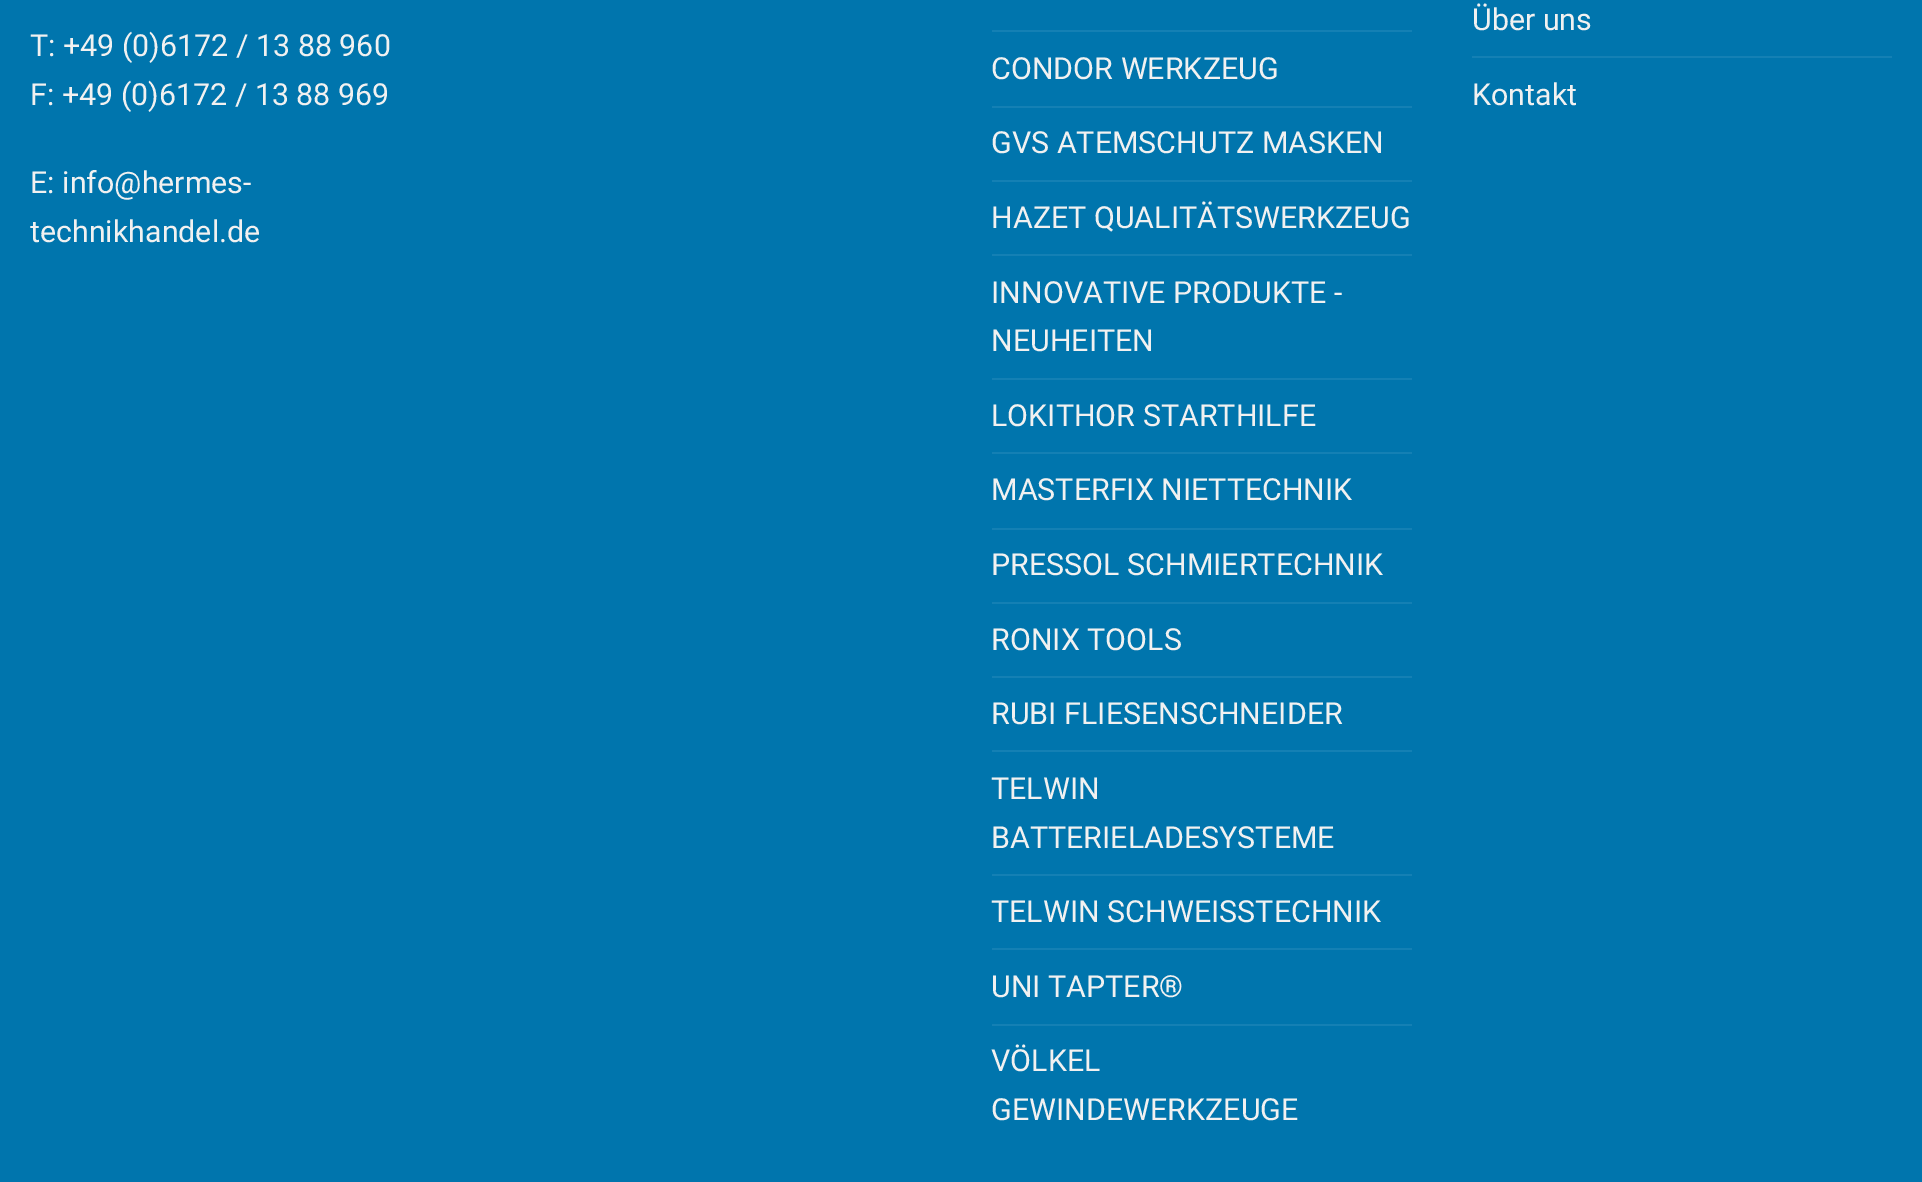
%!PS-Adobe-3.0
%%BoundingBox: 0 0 1922 1182
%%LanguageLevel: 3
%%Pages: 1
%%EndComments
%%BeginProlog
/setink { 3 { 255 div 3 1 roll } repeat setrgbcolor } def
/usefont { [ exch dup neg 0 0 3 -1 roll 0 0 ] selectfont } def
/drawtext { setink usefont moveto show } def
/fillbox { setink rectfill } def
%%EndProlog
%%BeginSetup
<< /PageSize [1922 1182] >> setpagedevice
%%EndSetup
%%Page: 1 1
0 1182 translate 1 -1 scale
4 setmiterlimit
0 0 1922 1182 0 117 173 fillbox
(T: +49 \(0\)6172 / 13 88 960) 30 56 /Roboto-Regular 30.4 241 241 241 drawtext
(F: +49 \(0\)6172 / 13 88 969) 30 105 /Roboto-Regular 30.4 241 241 241 drawtext
(E: info@hermes-) 30 193 /Roboto-Regular 30.4 241 241 241 drawtext
(technikhandel.de) 30 242 /Roboto-Regular 30.4 241 241 241 drawtext
992 30 420 2 20 128 180 fillbox
(CONDOR WERKZEUG) 991 79 /Roboto-Regular 30.4 241 241 241 drawtext
992 106 420 2 20 128 180 fillbox
(GVS ATEMSCHUTZ MASKEN) 991 153 /Roboto-Regular 30.4 241 241 241 drawtext
992 180 420 2 20 128 180 fillbox
(HAZET QUALITÄTSWERKZEUG) 991 228 /Roboto-Regular 30.4 241 241 241 drawtext
992 254 420 2 20 128 180 fillbox
(INNOVATIVE PRODUKTE -) 991 303 /Roboto-Regular 30.4 241 241 241 drawtext
(NEUHEITEN) 991 351 /Roboto-Regular 30.4 241 241 241 drawtext
992 378 420 2 20 128 180 fillbox
(LOKITHOR STARTHILFE) 991 426 /Roboto-Regular 30.4 241 241 241 drawtext
992 452 420 2 20 128 180 fillbox
(MASTERFIX NIETTECHNIK) 991 500 /Roboto-Regular 30.4 241 241 241 drawtext
992 528 420 2 20 128 180 fillbox
(PRESSOL SCHMIERTECHNIK) 991 575 /Roboto-Regular 30.4 241 241 241 drawtext
992 602 420 2 20 128 180 fillbox
(RONIX TOOLS) 991 650 /Roboto-Regular 30.4 241 241 241 drawtext
992 676 420 2 20 128 180 fillbox
(RUBI FLIESENSCHNEIDER) 991 724 /Roboto-Regular 30.4 241 241 241 drawtext
992 750 420 2 20 128 180 fillbox
(TELWIN) 991 799 /Roboto-Regular 30.4 241 241 241 drawtext
(BATTERIELADESYSTEME) 991 848 /Roboto-Regular 30.4 241 241 241 drawtext
992 874 420 2 20 128 180 fillbox
(TELWIN SCHWEISSTECHNIK) 991 922 /Roboto-Regular 30.4 241 241 241 drawtext
992 948 420 2 20 128 180 fillbox
(UNI TAPTER®) 991 997 /Roboto-Regular 30.4 241 241 241 drawtext
992 1024 420 2 20 128 180 fillbox
(VÖLKEL) 991 1071 /Roboto-Regular 30.4 241 241 241 drawtext
(GEWINDEWERKZEUGE) 991 1120 /Roboto-Regular 30.4 241 241 241 drawtext
(Über uns) 1472 30 /Roboto-Regular 30.4 241 241 241 drawtext
1472 56 420 2 20 128 180 fillbox
(Kontakt) 1472 105 /Roboto-Regular 30.4 241 241 241 drawtext
showpage
%%EOF
